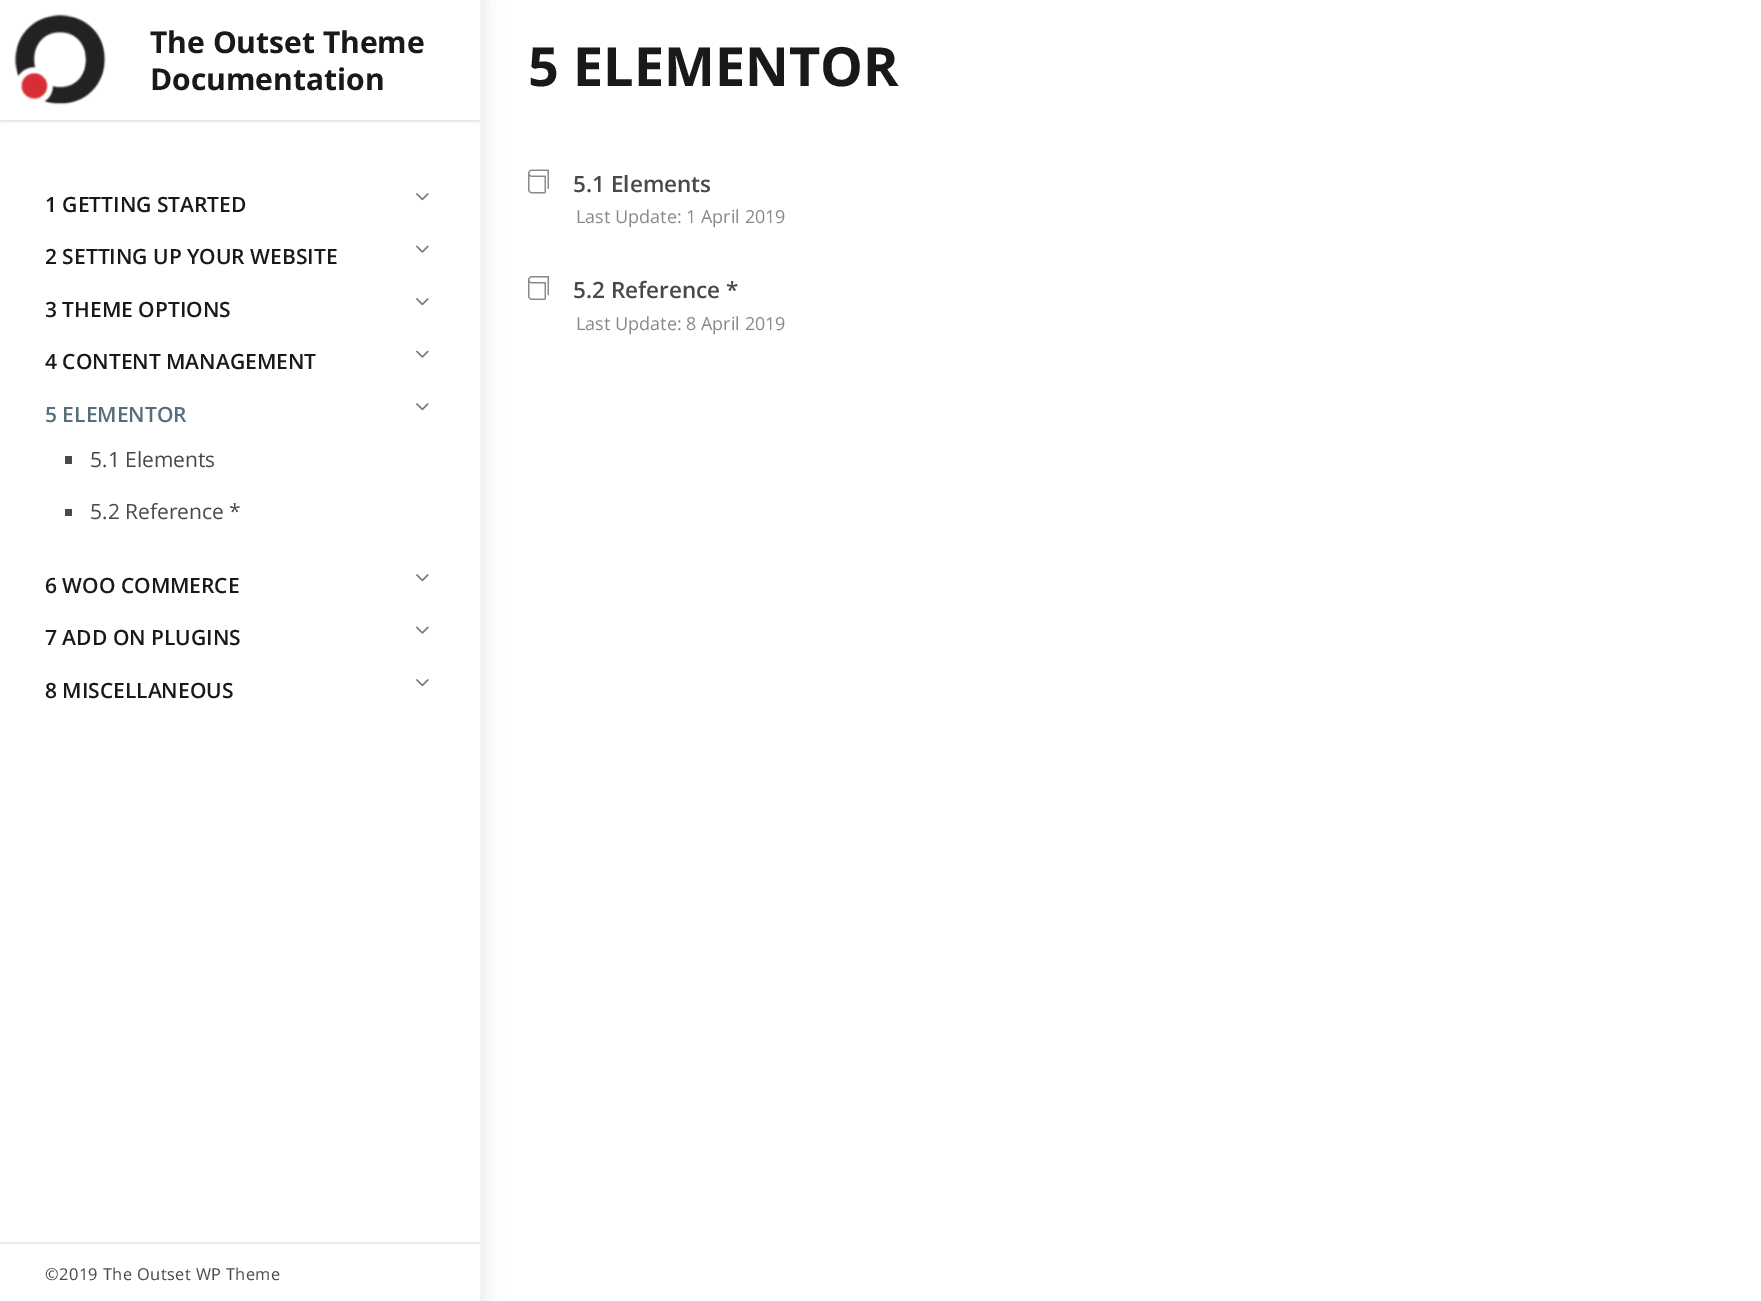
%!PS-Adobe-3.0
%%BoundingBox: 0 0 1761 1301
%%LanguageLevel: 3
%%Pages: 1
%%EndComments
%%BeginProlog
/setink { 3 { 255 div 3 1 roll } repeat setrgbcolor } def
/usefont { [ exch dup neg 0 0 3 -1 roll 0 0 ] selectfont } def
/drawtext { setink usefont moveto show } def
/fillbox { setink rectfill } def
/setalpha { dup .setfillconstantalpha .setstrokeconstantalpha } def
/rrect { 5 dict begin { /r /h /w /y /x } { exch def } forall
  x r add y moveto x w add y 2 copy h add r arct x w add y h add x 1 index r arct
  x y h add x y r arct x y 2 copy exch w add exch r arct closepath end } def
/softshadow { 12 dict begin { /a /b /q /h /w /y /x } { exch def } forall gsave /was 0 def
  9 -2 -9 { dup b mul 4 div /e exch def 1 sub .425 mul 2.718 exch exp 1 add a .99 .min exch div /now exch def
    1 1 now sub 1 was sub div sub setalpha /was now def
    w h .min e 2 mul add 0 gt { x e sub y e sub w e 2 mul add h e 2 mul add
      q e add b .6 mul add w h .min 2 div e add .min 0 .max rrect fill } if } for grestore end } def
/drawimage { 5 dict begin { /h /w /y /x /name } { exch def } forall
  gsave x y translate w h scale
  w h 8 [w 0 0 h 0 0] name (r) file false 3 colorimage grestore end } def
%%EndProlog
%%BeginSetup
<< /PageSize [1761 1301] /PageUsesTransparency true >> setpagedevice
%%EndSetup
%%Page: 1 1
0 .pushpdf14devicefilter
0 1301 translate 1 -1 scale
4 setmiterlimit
0 0 1761 1301 255 255 255 fillbox
0 0 0 setink
3 0 480 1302 0 11 0.1 softshadow
0 0 480 1301 255 255 255 fillbox
gsave
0 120 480 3 rectclip
0 0 0 setink
0 2 480 120 0 1 0.1 softshadow
grestore
(assets/img1.rgb) 14 14 92 91 drawimage
(The Outset Theme) 150 53 /OpenSans-Bold 30 25 25 25 drawtext
(Documentation) 150 90 /OpenSans-Bold 30 25 25 25 drawtext
(1 GETTING STARTED) 45 212 /OpenSans-SemiBold 21 25 25 25 drawtext
(assets/img2.rgb) 416 193 13 8 drawimage
(2 SETTING UP YOUR WEBSITE) 45 264 /OpenSans-SemiBold 21 25 25 25 drawtext
(assets/img3.rgb) 416 245 13 8 drawimage
(3 THEME OPTIONS) 45 317 /OpenSans-SemiBold 21 25 25 25 drawtext
(assets/img2.rgb) 416 298 13 8 drawimage
(4 CONTENT MANAGEMENT) 45 369 /OpenSans-SemiBold 21 25 25 25 drawtext
(assets/img3.rgb) 416 350 13 8 drawimage
(5 ELEMENTOR) 45 422 /OpenSans-SemiBold 21 84 110 122 drawtext
(assets/img2.rgb) 416 403 13 8 drawimage
65 456 7 8 73 73 73 fillbox
(5.1 Elements) 90 467 /OpenSans-Regular 21 73 73 73 drawtext
65 509 7 7 73 73 73 fillbox
(5.2 Reference *) 90 519 /OpenSans-Regular 21 73 73 73 drawtext
(6 WOO COMMERCE) 45 593 /OpenSans-SemiBold 21 25 25 25 drawtext
(assets/img2.rgb) 416 574 13 8 drawimage
(7 ADD ON PLUGINS) 45 645 /OpenSans-SemiBold 21 25 25 25 drawtext
(assets/img3.rgb) 416 626 13 8 drawimage
(8 MISCELLANEOUS) 45 698 /OpenSans-SemiBold 21 25 25 25 drawtext
(assets/img2.rgb) 416 679 13 8 drawimage
0 1242 480 2 233 233 233 fillbox
/OpenSans-Regular 16.4 usefont
73 73 73 setink
45 1280 moveto 0.4 0 (©2019 The Outset WP Theme) ashow
(5 ELEMENTOR) 528 86 /OpenSans-Bold 54 25 25 25 drawtext
(assets/img4.rgb) 528 169 21 25 drawimage
(5.1 Elements) 573 192 /OpenSans-SemiBold 22.5 73 73 73 drawtext
(Last Update: 1 April 2019) 576 223 /OpenSans-Regular 18 137 137 137 drawtext
(assets/img5.rgb) 528 276 21 24 drawimage
(5.2 Reference *) 573 298 /OpenSans-SemiBold 22.5 73 73 73 drawtext
(Last Update: 8 April 2019) 576 330 /OpenSans-Regular 18 137 137 137 drawtext
.poppdf14devicefilter showpage
%%EOF
